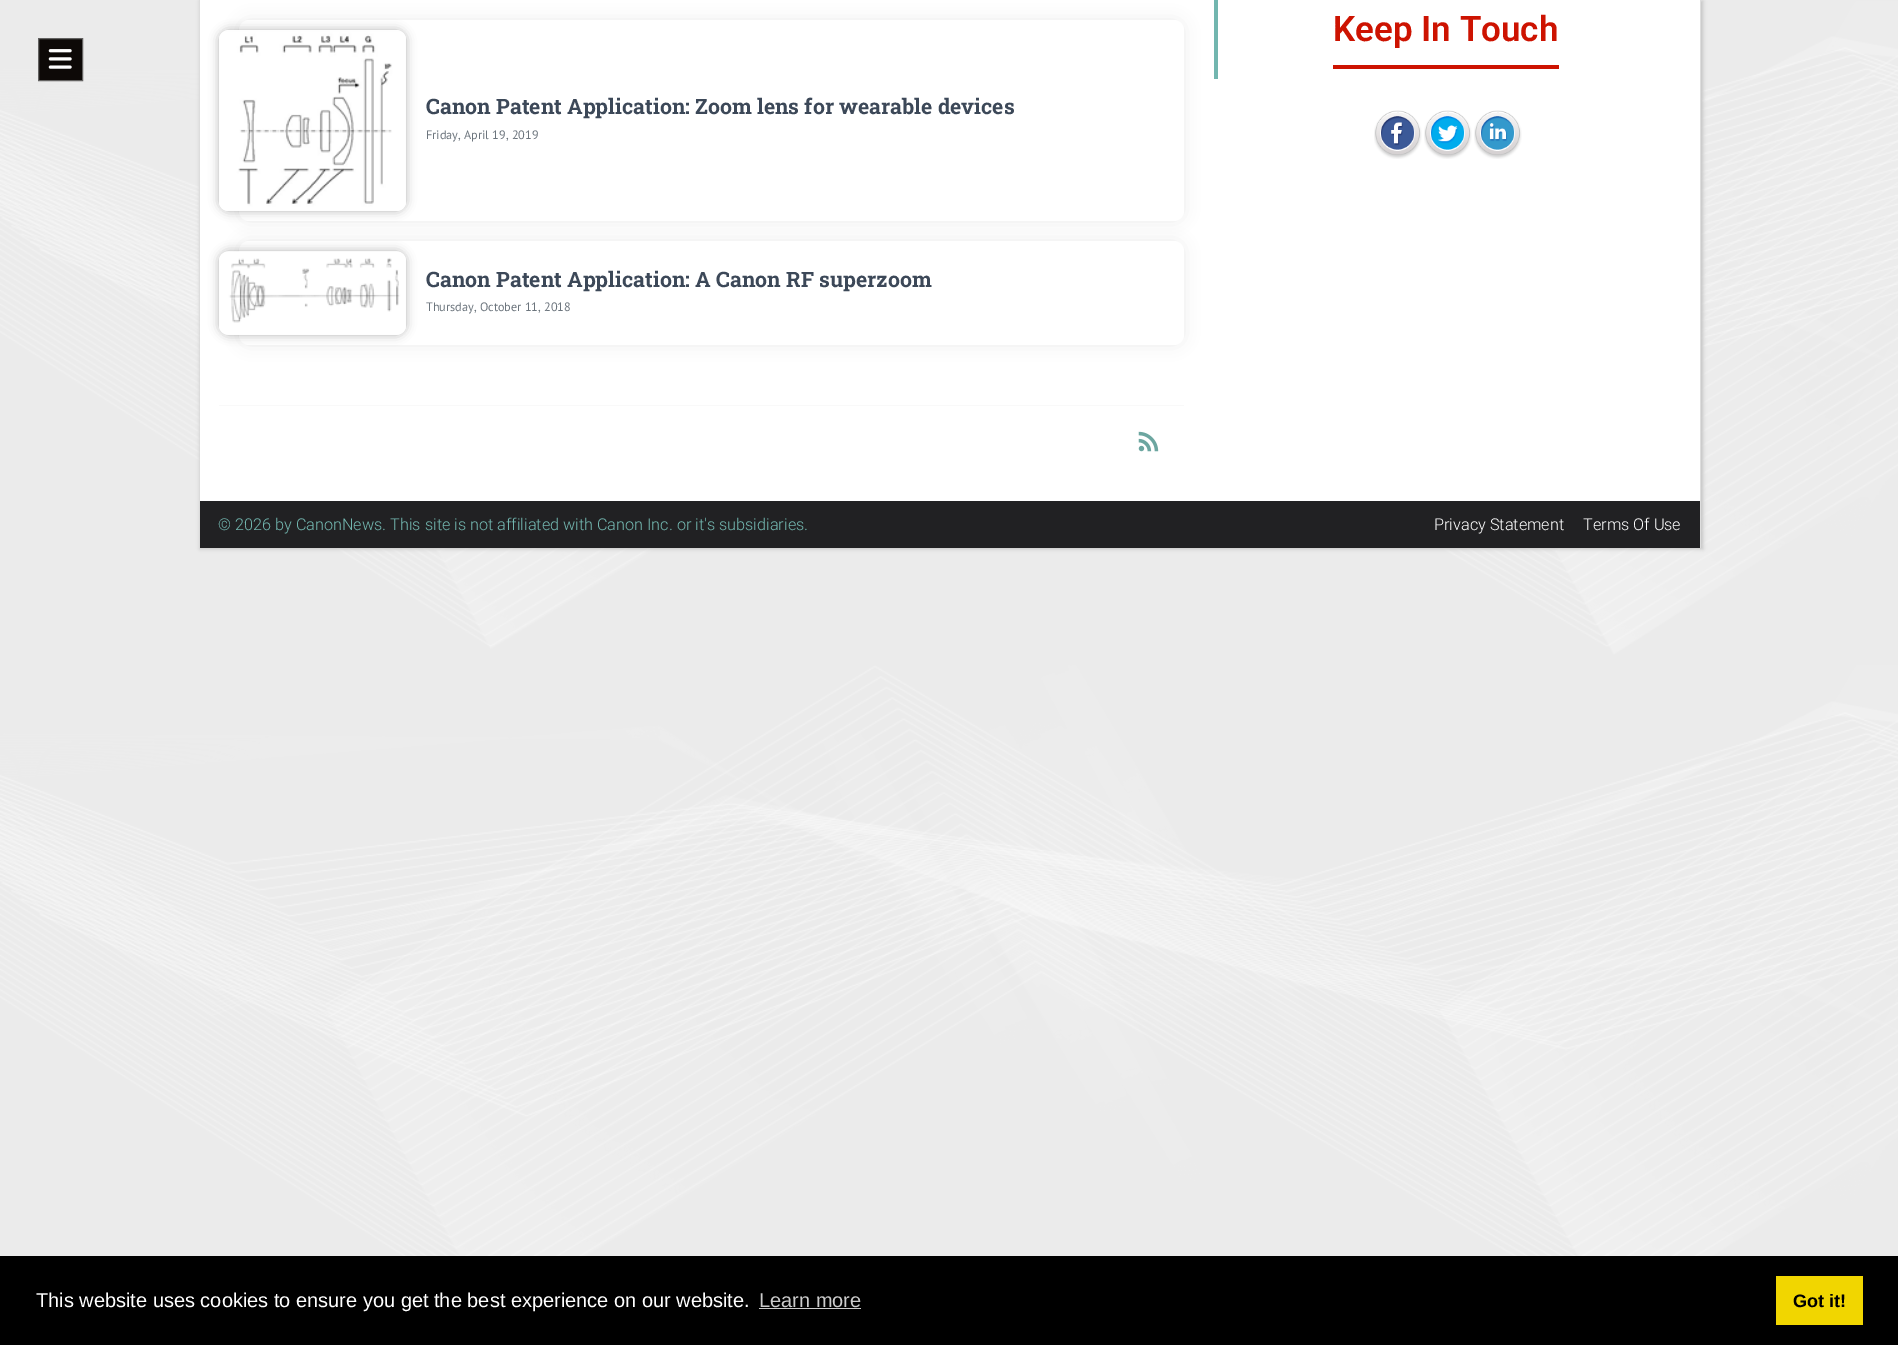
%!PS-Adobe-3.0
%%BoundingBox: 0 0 1898 1345
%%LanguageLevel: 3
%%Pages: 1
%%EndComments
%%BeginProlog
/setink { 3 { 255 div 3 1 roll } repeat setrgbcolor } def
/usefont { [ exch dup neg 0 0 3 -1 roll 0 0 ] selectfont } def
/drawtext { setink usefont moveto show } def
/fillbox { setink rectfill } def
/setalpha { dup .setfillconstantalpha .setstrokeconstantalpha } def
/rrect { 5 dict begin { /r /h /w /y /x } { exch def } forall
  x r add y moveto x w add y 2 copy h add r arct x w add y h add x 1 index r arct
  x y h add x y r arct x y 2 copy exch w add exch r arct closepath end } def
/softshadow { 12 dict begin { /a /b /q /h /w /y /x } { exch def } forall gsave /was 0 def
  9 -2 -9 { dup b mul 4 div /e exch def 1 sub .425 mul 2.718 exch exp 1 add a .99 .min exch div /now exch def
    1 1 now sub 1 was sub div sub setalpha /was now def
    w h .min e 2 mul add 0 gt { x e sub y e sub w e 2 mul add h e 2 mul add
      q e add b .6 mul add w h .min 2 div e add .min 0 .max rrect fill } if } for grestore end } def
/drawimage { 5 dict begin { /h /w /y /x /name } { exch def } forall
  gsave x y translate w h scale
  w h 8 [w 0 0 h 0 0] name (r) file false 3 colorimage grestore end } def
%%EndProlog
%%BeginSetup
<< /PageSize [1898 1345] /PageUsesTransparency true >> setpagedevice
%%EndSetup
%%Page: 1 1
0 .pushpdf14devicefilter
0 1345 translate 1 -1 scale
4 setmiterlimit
0 0 1898 1345 235 235 235 fillbox
(assets/img1.rgb) 0 1 1898 1255 drawimage
194 194 194 setink
200 1 1503 548 0 2 1 softshadow
200 0 1500 501 255 255 255 fillbox
1700 0 1 548 221 221 221 fillbox
199 0 1 316 221 221 221 fillbox
13 9 7 setink
38.5 38.5 moveto 82.5 38.5 lineto 82.5 80.5 lineto 38.5 80.5 lineto closepath gsave fill grestore
99 98 97 setink
stroke
(assets/img2.rgb) 48 49 24 20 drawimage
1214 0 4 79 114 182 175 fillbox
(Keep In Touch) 1333 41 /Roboto-SemiBold 35 205 19 1 drawtext
1333 65 226 4 205 19 1 fillbox
(assets/img3.rgb) 1374 110 48 49 drawimage
(assets/img4.rgb) 1424 110 48 49 drawimage
(assets/img5.rgb) 1474 110 48 49 drawimage
0 0 0 setink
239 20 945 201 10 7.5 0.07 softshadow
255 255 255 setink
239 20 945 201 10 rrect fill
gsave
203 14 moveto 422 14 lineto 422 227 lineto 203 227 lineto closepath 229 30 moveto 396 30 lineto 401.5 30 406 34.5 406 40 curveto 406 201 lineto 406 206.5 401.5 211 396 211 curveto 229 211 lineto 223.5 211 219 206.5 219 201 curveto 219 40 lineto 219 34.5 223.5 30 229 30 curveto closepath eoclip newpath
0 0 0 setink
219 30 187 181 10 5 0.29 softshadow
grestore
(assets/img6.rgb) 219 30 187 181 drawimage
(Canon Patent Application: Zoom lens for wearable devices) 426 114 /RobotoSlab-Bold 21.25 60 72 88 drawtext
(Friday, April 19, 2019) 426 139 /PTSans-Regular 12.25 108 117 125 drawtext
0 0 0 setink
239 241 945 104 10 7.5 0.07 softshadow
255 255 255 setink
239 241 945 104 10 rrect fill
gsave
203 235 moveto 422 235 lineto 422 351 lineto 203 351 lineto closepath 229 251 moveto 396 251 lineto 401.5 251 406 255.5 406 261 curveto 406 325 lineto 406 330.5 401.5 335 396 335 curveto 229 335 lineto 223.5 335 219 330.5 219 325 curveto 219 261 lineto 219 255.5 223.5 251 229 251 curveto closepath eoclip newpath
0 0 0 setink
219 251 187 84 10 5 0.29 softshadow
grestore
(assets/img7.rgb) 219 251 187 84 drawimage
(Canon Patent Application: A Canon RF superzoom) 426 287 /RobotoSlab-Bold 21.25 60 72 88 drawtext
(Thursday, October 11, 2018) 426 311 /PTSans-Regular 12.25 108 117 125 drawtext
219 405 965 1 249 249 249 fillbox
(assets/img8.rgb) 1138 431 21 21 drawimage
200 501 1500 47 33 33 35 fillbox
(© 2026 by CanonNews. This site is not affiliated with Canon Inc. or it's subsidiaries.) 218 530 /Roboto-Light 16.25 114 182 175 drawtext
(Privacy Statement) 1434 530 /Roboto-Light 16.25 255 255 255 drawtext
(Terms Of Use) 1583 530 /Roboto-Light 16.25 255 255 255 drawtext
0 1256 1898 89 0 0 0 fillbox
(This website uses cookies to ensure you get the best experience on our website.) 36 1307 /LiberationSans-Regular 20 255 255 255 drawtext
(Learn more) 759 1307 /LiberationSans-Regular 20 204 204 204 drawtext
759 1308 102 1 204 204 204 fillbox
1776 1276 87 49 241 214 0 fillbox
(Got it!) 1793 1307 /LiberationSans-Bold 18 0 0 0 drawtext
.poppdf14devicefilter showpage
%%EOF
